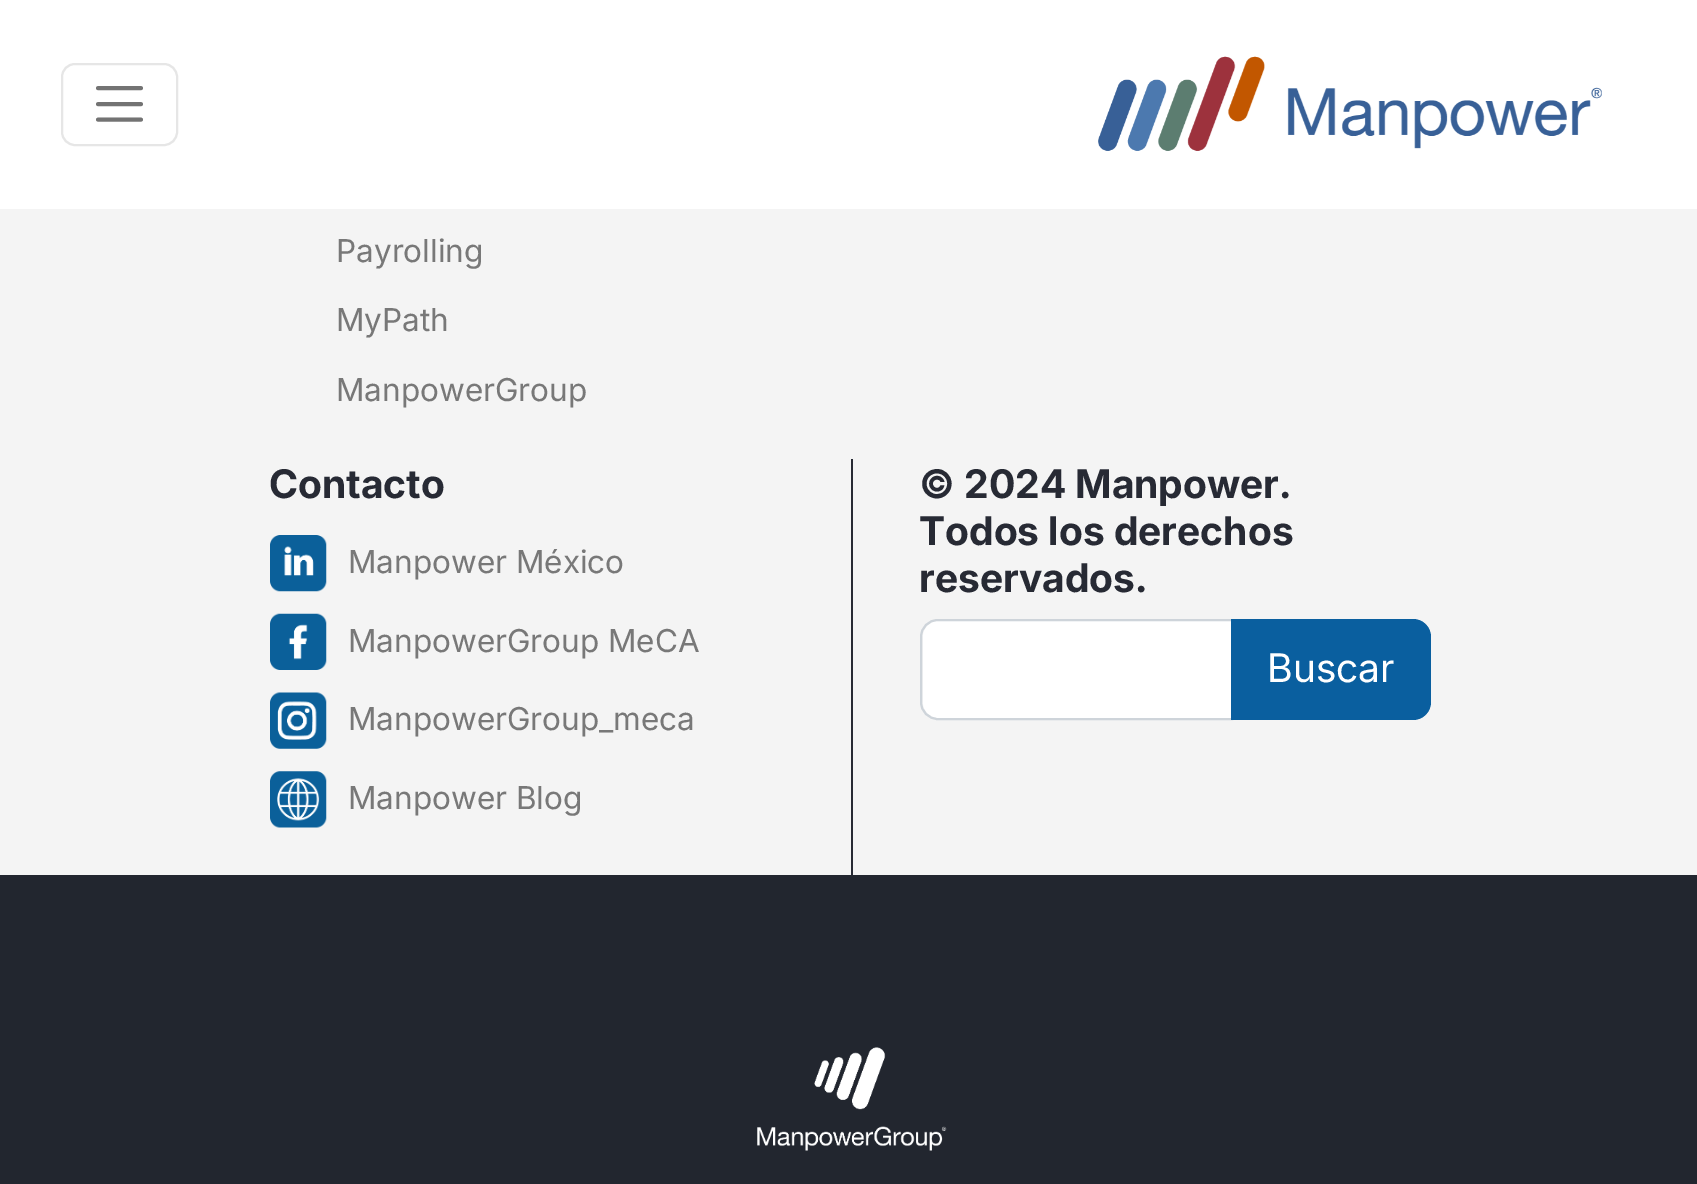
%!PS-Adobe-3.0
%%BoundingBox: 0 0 1697 1184
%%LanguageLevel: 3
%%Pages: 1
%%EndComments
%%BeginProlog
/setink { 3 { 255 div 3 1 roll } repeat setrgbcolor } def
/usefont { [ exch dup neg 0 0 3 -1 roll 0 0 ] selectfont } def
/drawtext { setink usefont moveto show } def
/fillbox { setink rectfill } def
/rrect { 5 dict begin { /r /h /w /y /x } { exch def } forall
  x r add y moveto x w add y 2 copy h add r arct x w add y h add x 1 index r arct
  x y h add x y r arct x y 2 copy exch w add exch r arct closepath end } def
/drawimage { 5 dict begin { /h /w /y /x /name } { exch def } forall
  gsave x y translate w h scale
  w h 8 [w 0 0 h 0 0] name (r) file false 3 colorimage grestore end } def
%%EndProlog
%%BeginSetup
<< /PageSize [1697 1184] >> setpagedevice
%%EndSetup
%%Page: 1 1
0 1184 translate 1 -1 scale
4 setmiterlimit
0 0 1697 1184 244 244 244 fillbox
0 0 1697 209 255 255 255 fillbox
230 230 230 setink
2 setlinewidth
62 64 115 81 13 rrect stroke
115 115 115 setink
3.9 setlinewidth
1 setlinecap
98 88 moveto 141 88 lineto 98 104 moveto 141 104 lineto 98 119.5 moveto 141 119.5 lineto stroke
(assets/img1.rgb) 1098 56 504 95 drawimage
(Payrolling) 336 262 /Inter-Regular 31.5 120 120 120 drawtext
(MyPath) 336 331 /Inter-Regular 31.5 120 120 120 drawtext
(ManpowerGroup) 336 401 /Inter-Regular 31.5 120 120 120 drawtext
(Contacto) 269 498 /Inter-Bold 39.4 39 42 52 drawtext
(assets/img2.rgb) 270 535 57 57 drawimage
(Manpower México) 348 573 /Inter-Regular 31.5 120 120 120 drawtext
(assets/img3.rgb) 270 613 57 57 drawimage
(ManpowerGroup MeCA) 348 652 /Inter-Regular 31.5 120 120 120 drawtext
(assets/img4.rgb) 270 692 57 57 drawimage
(ManpowerGroup_meca) 348 730 /Inter-Regular 31.5 120 120 120 drawtext
(assets/img5.rgb) 270 771 57 57 drawimage
(Manpower Blog) 348 809 /Inter-Regular 31.5 120 120 120 drawtext
851 459 2 416 39 42 52 fillbox
(© 2024 Manpower.) 919 498 /Inter-Bold 39.4 39 42 52 drawtext
(Todos los derechos) 919 545 /Inter-Bold 39.4 39 42 52 drawtext
(reservados.) 919 592 /Inter-Bold 39.4 39 42 52 drawtext
255 255 255 setink
939 621 moveto 1231 621 lineto 1231 718 lineto 939 718 lineto 930 718 923 711 923 702 curveto 923 637 lineto 923 628 930 621 939 621 curveto closepath fill
206 212 218 setink
2 setlinewidth
0 setlinecap
938 620 moveto 1232 620 lineto 1232 719 lineto 938 719 lineto 928.5 719 921 711.5 921 702 curveto 921 637 lineto 921 627.5 928.5 620 938 620 curveto closepath stroke
10 95 159 setink
1231 619 moveto 1413 619 lineto 1423 619 1431 627 1431 637 curveto 1431 702 lineto 1431 712 1423 720 1413 720 curveto 1231 720 lineto closepath fill
(Buscar) 1267 682 /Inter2-Regular 39.4 255 255 255 drawtext
0 875 1697 309 34 38 47 fillbox
(assets/img6.rgb) 757 1047 190 104 drawimage
showpage
%%EOF
